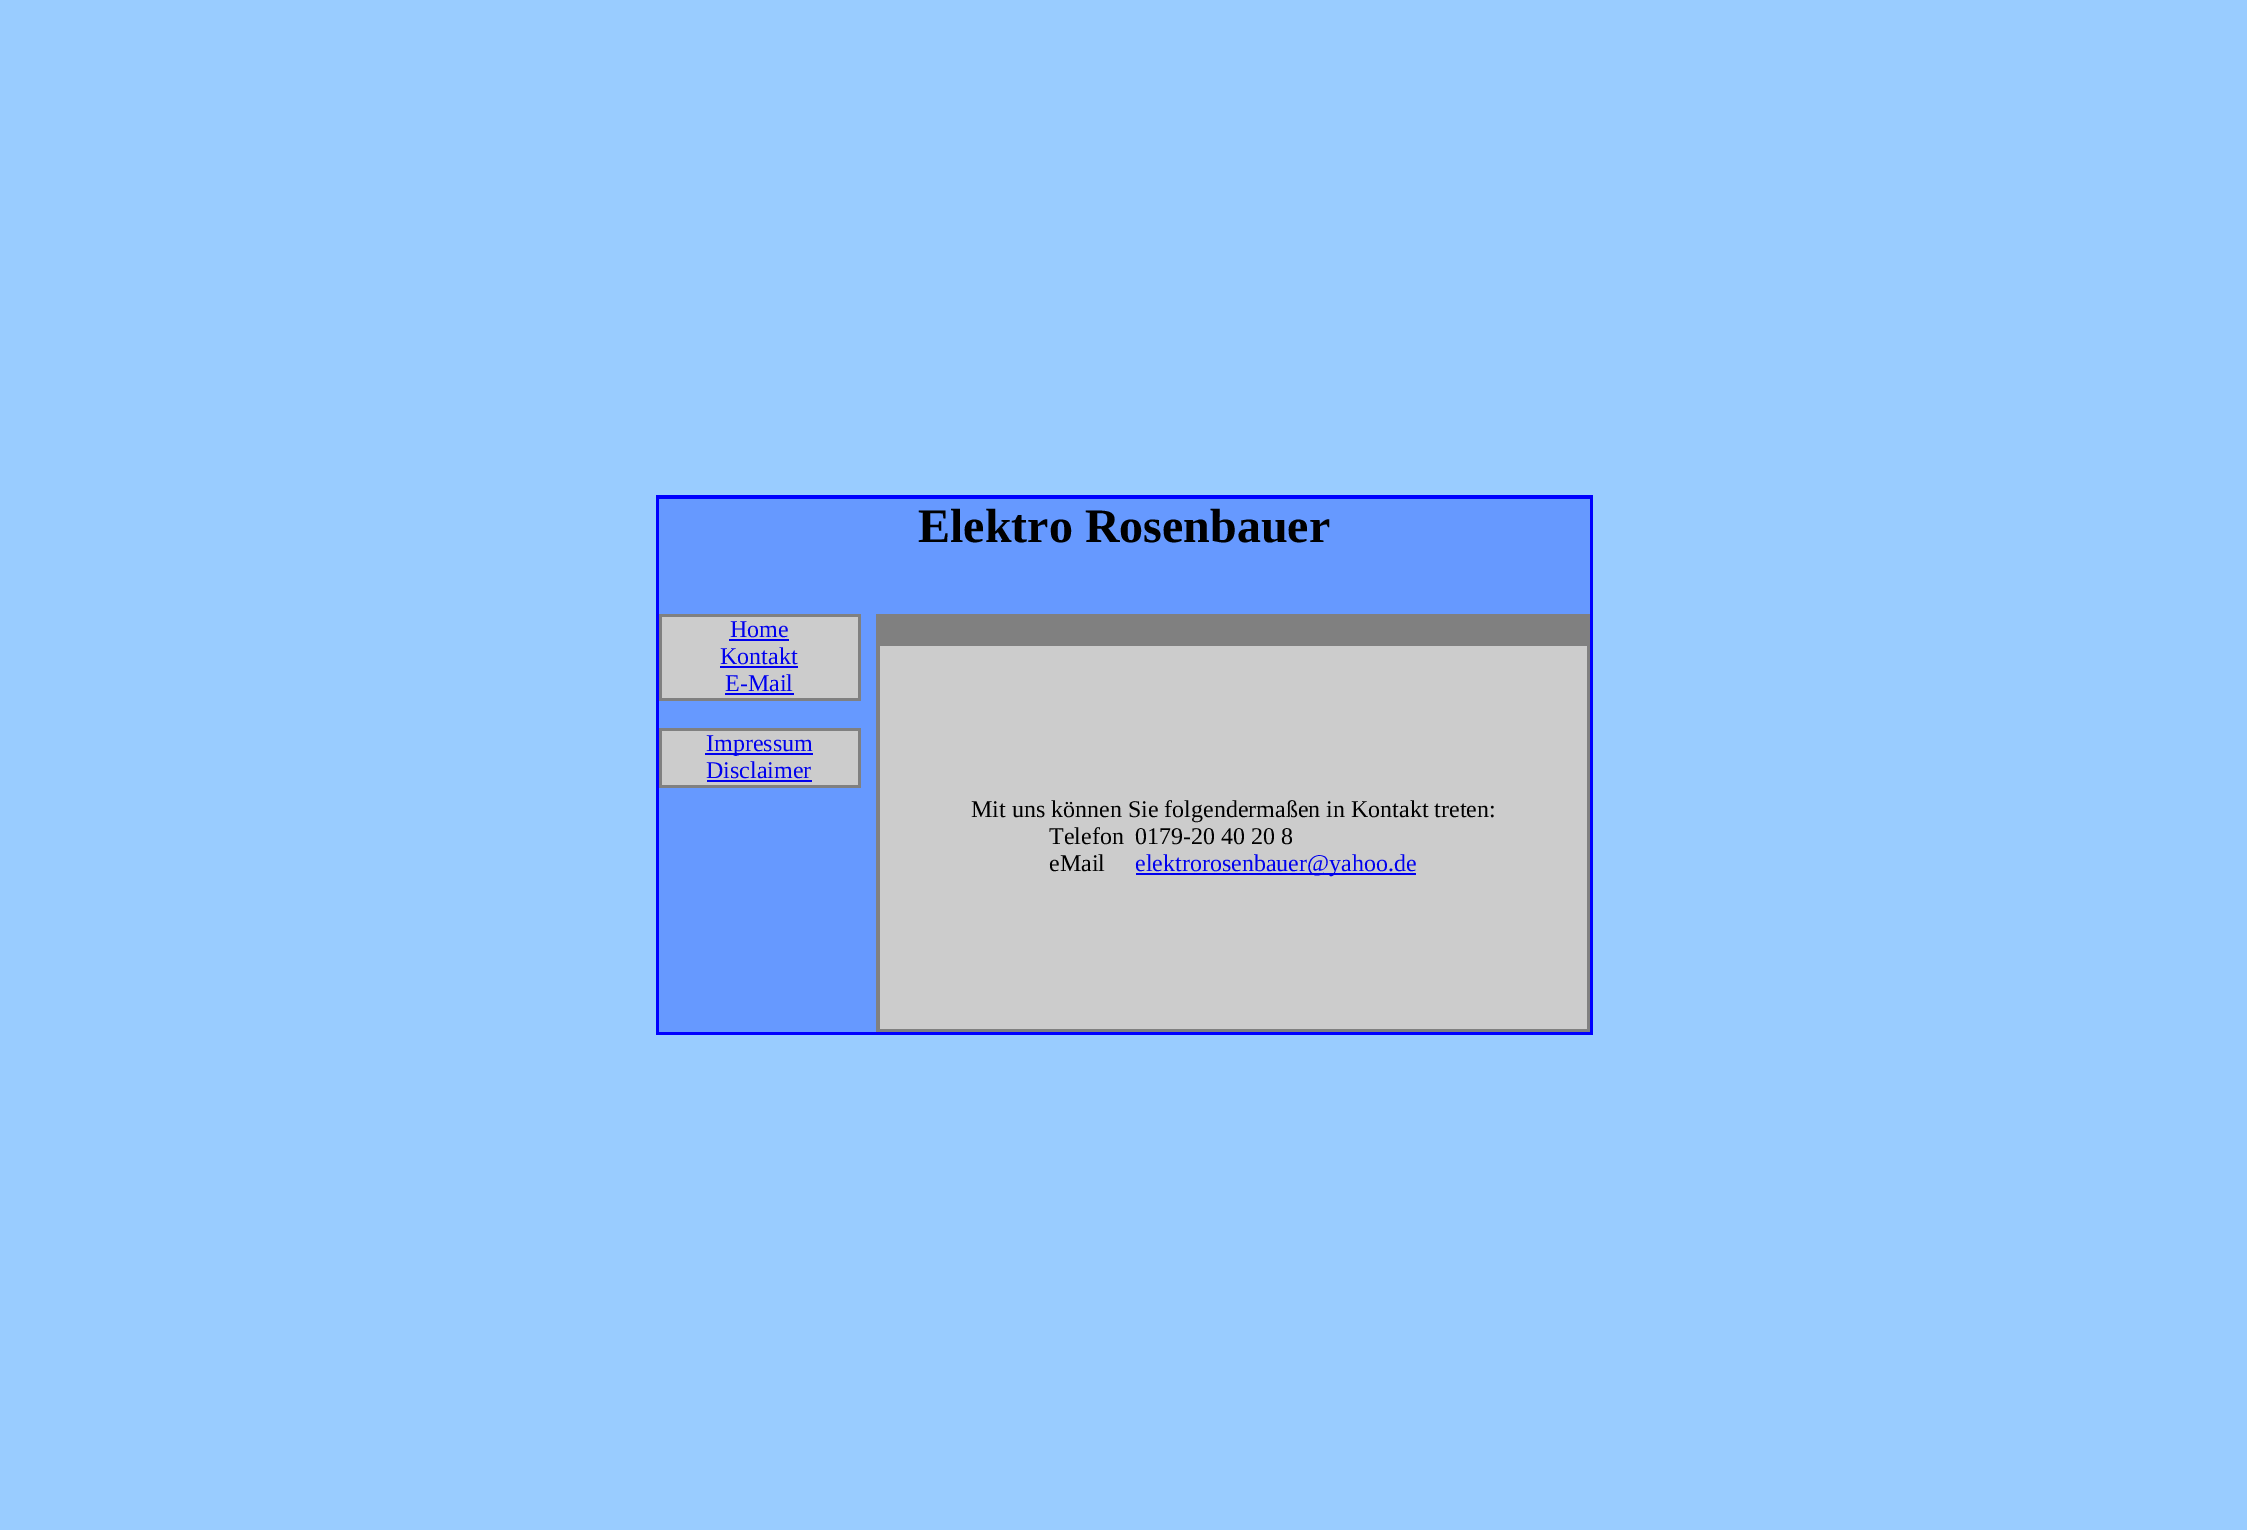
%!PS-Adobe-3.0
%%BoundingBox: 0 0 2247 1530
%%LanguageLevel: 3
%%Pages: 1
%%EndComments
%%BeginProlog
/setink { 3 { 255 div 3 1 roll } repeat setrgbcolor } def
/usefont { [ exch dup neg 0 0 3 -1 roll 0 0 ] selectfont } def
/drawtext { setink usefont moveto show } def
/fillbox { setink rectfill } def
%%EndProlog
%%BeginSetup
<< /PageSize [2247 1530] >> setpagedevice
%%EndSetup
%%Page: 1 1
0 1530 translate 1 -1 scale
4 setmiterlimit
0 0 2247 1530 153 204 255 fillbox
656 495 937 3 0 0 255 fillbox
656 498 936 1 0 0 255 fillbox
1590 495 3 540 0 0 255 fillbox
656 1032 937 3 0 0 255 fillbox
656 495 3 540 0 0 255 fillbox
659 499 931 533 102 153 255 fillbox
(Elektro Rosenbauer) 918 542 /LiberationSerif-Bold 48 0 0 0 drawtext
659 614 202 3 128 128 128 fillbox
858 614 3 87 128 128 128 fillbox
659 698 202 3 128 128 128 fillbox
659 614 3 87 128 128 128 fillbox
662 617 196 81 204 204 204 fillbox
(Home) 730 637 /LiberationSerif-Regular 24 0 0 238 drawtext
729 639 60 2 0 0 238 fillbox
(Kontakt) 720 664 /LiberationSerif-Regular 24 0 0 238 drawtext
720 666 78 2 0 0 238 fillbox
(E-Mail) 725 691 /LiberationSerif-Regular 24 0 0 238 drawtext
725 693 69 2 0 0 238 fillbox
659 728 202 3 128 128 128 fillbox
858 728 3 60 128 128 128 fillbox
659 785 202 3 128 128 128 fillbox
659 728 3 60 128 128 128 fillbox
662 731 196 54 204 204 204 fillbox
705 753 108 2 0 0 238 fillbox
(Impressum) 706 751 /LiberationSerif-Regular 24 0 0 238 drawtext
(Disclaimer) 706 778 /LiberationSerif-Regular 24 0 0 238 drawtext
707 780 105 2 0 0 238 fillbox
876 614 714 3 128 128 128 fillbox
878 644 711 2 128 128 128 fillbox
1587 614 3 418 128 128 128 fillbox
879 644 1 387 128 128 128 fillbox
876 1029 714 3 128 128 128 fillbox
876 614 3 418 128 128 128 fillbox
879 617 708 27 128 128 128 fillbox
880 646 707 383 204 204 204 fillbox
(Mit uns können Sie folgendermaßen in Kontakt treten:) 971 817 /LiberationSerif-Regular 24 0 0 0 drawtext
(Telefon) 1049 844 /LiberationSerif-Regular 24 0 0 0 drawtext
(0179-20 40 20 8) 1135 844 /LiberationSerif-Regular 24 0 0 0 drawtext
(eMail) 1049 871 /LiberationSerif-Regular 24 0 0 0 drawtext
1136 873 280 2 0 0 238 fillbox
(elektrorosenbauer@yahoo.de) 1135 871 /LiberationSerif-Regular 24 0 0 238 drawtext
showpage
%%EOF
